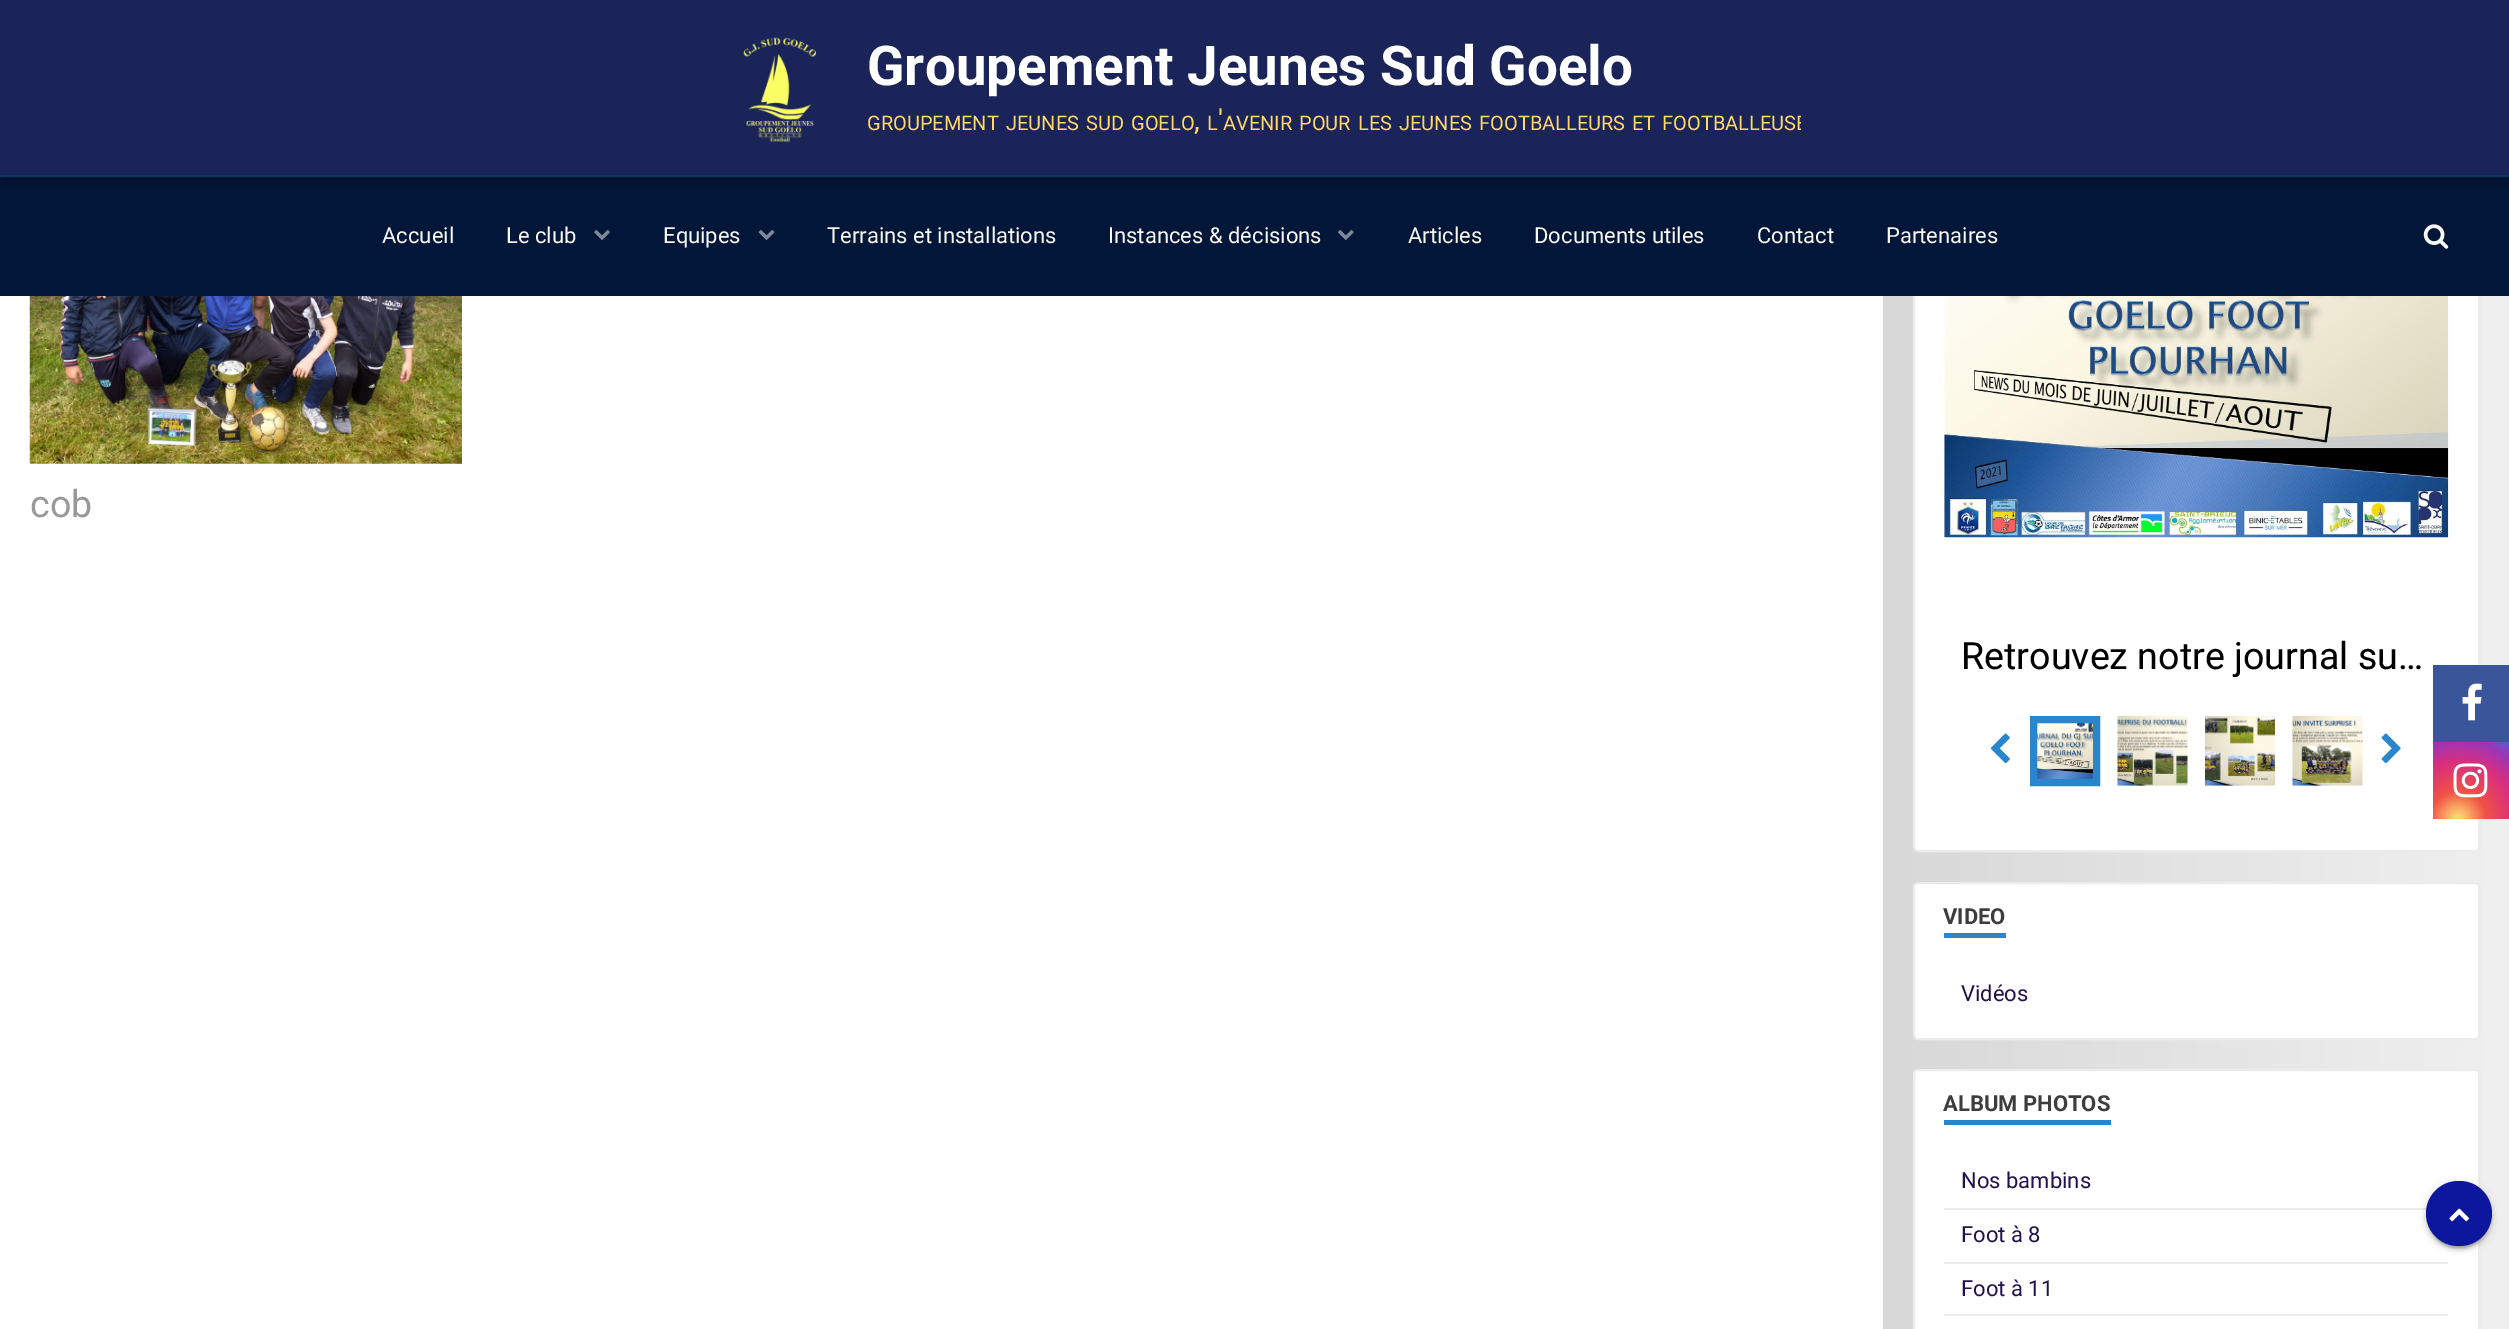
%!PS-Adobe-3.0
%%BoundingBox: 0 0 2509 1329
%%LanguageLevel: 3
%%Pages: 1
%%EndComments
%%BeginProlog
/setink { 3 { 255 div 3 1 roll } repeat setrgbcolor } def
/usefont { [ exch dup neg 0 0 3 -1 roll 0 0 ] selectfont } def
/drawtext { setink usefont moveto show } def
/fillbox { setink rectfill } def
/setalpha { dup .setfillconstantalpha .setstrokeconstantalpha } def
/rrect { 5 dict begin { /r /h /w /y /x } { exch def } forall
  x r add y moveto x w add y 2 copy h add r arct x w add y h add x 1 index r arct
  x y h add x y r arct x y 2 copy exch w add exch r arct closepath end } def
/softshadow { 12 dict begin { /a /b /q /h /w /y /x } { exch def } forall gsave /was 0 def
  9 -2 -9 { dup b mul 4 div /e exch def 1 sub .425 mul 2.718 exch exp 1 add a .99 .min exch div /now exch def
    1 1 now sub 1 was sub div sub setalpha /was now def
    w h .min e 2 mul add 0 gt { x e sub y e sub w e 2 mul add h e 2 mul add
      q e add b .6 mul add w h .min 2 div e add .min 0 .max rrect fill } if } for grestore end } def
/drawimage { 5 dict begin { /h /w /y /x /name } { exch def } forall
  gsave x y translate w h scale
  w h 8 [w 0 0 h 0 0] name (r) file false 3 colorimage grestore end } def
%%EndProlog
%%BeginSetup
<< /PageSize [2509 1329] /PageUsesTransparency true >> setpagedevice
%%EndSetup
%%Page: 1 1
0 .pushpdf14devicefilter
0 1329 translate 1 -1 scale
4 setmiterlimit
0 0 2509 1329 255 255 255 fillbox
gsave 1883 296 moveto 2509 296 lineto 2509 1329 lineto 1883 1329 lineto closepath clip newpath
<< /ShadingType 2 /ColorSpace /DeviceRGB /Coords [1883 947 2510 947] /Extend [true true] /Function << /FunctionType 2 /Domain [0 1] /C0 [0.847 0.847 0.847] /C1 [0.941 0.941 0.941] /N 1 >> >> shfill grestore
1914 -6 565 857 4 rrect gsave fill grestore
236 236 236 setink
2 setlinewidth
stroke
0 177 2509 119 1 22 56 fillbox
0 0 0 setink
0 9 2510 177 0 4.5 0.2 softshadow
0 0 2509 175 26 36 89 fillbox
0 175 2509 2 7 55 99 fillbox
(assets/img1.rgb) 743 37 73 106 drawimage
(Groupement Jeunes Sud Goelo) 867 85 /Roboto-Bold 54.9 255 255 255 drawtext
(') 1218 130 /Roboto-Regular 29 255 217 102 drawtext
(GROUPEMENT) 867 130 /Roboto-Regular 20 255 217 102 drawtext
(JEUNES) 1006 130 /Roboto-Regular 20 255 217 102 drawtext
(SUD) 1086 130 /Roboto-Regular 20 255 217 102 drawtext
(GOELO) 1131 130 /Roboto-Regular 20 255 217 102 drawtext
(,) 1194 130 /Roboto-Regular 29 255 217 102 drawtext
(L AVENIR) 1207 130 /Roboto-Regular 20 255 217 102 drawtext
(POUR) 1299 130 /Roboto-Regular 20 255 217 102 drawtext
(LES) 1358 130 /Roboto-Regular 20 255 217 102 drawtext
(JEUNES) 1399 130 /Roboto-Regular 20 255 217 102 drawtext
(FOOTBALLEURS) 1479 130 /Roboto-Regular 20 255 217 102 drawtext
(ET) 1632 130 /Roboto-Regular 20 255 217 102 drawtext
gsave
868 100 933 40 rectclip
(FOOTBALLEUSE) 1662 130 /Roboto-Regular 20 255 217 102 drawtext
grestore
(Accueil) 382 243 /Roboto-Regular 22 250 249 243 drawtext
(Le club) 506 243 /Roboto-Regular 22 250 249 243 drawtext
(assets/img2.rgb) 594 230 16 10 drawimage
(Equipes) 663 243 /Roboto-Regular 22 250 249 243 drawtext
(assets/img3.rgb) 758 230 17 10 drawimage
(Terrains et installations) 827 243 /Roboto-Regular 22 250 249 243 drawtext
(Instances & décisions) 1108 243 /Roboto-Regular 22 250 249 243 drawtext
(assets/img4.rgb) 1338 230 16 10 drawimage
(Articles) 1408 243 /Roboto-Regular 22 250 249 243 drawtext
(Documents utiles) 1534 243 /Roboto-Regular 22 250 249 243 drawtext
(Contact) 1757 243 /Roboto-Regular 22 250 249 243 drawtext
(Partenaires) 1886 243 /Roboto-Regular 22 250 249 243 drawtext
(assets/img5.rgb) 2423 224 26 25 drawimage
(assets/img6.rgb) 29 296 433 168 drawimage
(cob) 30 517 /Roboto-Regular 37.6 153 153 153 drawtext
(assets/img7.rgb) 1944 296 505 242 drawimage
(Retrouvez notre journal su…) 1961 669 /Roboto-Regular 37.6 0 0 0 drawtext
(assets/img8.rgb) 1990 733 20 31 drawimage
(assets/img9.rgb) 2037 723 56 56 drawimage
(assets/img10.rgb) 2117 715 71 71 drawimage
(assets/img11.rgb) 2205 715 70 71 drawimage
(assets/img12.rgb) 2292 715 71 71 drawimage
41 134 204 setink
7 setlinewidth
2033.5 719.5 63 63 rectstroke
(assets/img13.rgb) 2381 733 20 31 drawimage
255 255 255 setink
1914 883 565 156 4 rrect gsave fill grestore
236 236 236 setink
2 setlinewidth
stroke
(VIDEO) 1943 924 /Roboto-Bold 22 61 61 61 drawtext
1944 933 62 5 41 134 204 fillbox
(Vidéos) 1961 1001 /Roboto-Regular 22 32 18 77 drawtext
255 255 255 setink
1914 1070 565 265 4 rrect gsave fill grestore
236 236 236 setink
stroke
(ALBUM PHOTOS) 1943 1111 /Roboto-Bold 22 61 61 61 drawtext
1944 1120 167 5 41 134 204 fillbox
1944 1208 483 2 236 236 236 fillbox
(Nos bambins) 1961 1188 /Roboto-Regular 22 32 18 77 drawtext
1944 1262 504 2 236 236 236 fillbox
(Foot à 8) 1961 1242 /Roboto-Regular 22 32 18 77 drawtext
1944 1314 504 2 236 236 236 fillbox
(Foot à 11) 1961 1296 /Roboto-Regular 22 32 18 77 drawtext
2433 665 76 77 56 86 153 fillbox
(assets/img14.rgb) 2462 683 20 38 drawimage
gsave 2433 742 moveto 2509 742 lineto 2509 819 lineto 2433 819 lineto closepath clip newpath 2458 819 translate 93 93 scale
<< /ShadingType 3 /ColorSpace /DeviceRGB /Coords [0 0 0 0 0 1] /Extend [true true] /Function << /FunctionType 3 /Domain [0 1] /Functions [<< /FunctionType 2 /Domain [0 1] /C0 [0.996 0.827 0.451] /C1 [0.996 0.827 0.451] /N 1 >> << /FunctionType 2 /Domain [0 1] /C0 [0.996 0.827 0.451] /C1 [0.945 0.322 0.271] /N 1 >> << /FunctionType 2 /Domain [0 1] /C0 [0.945 0.322 0.271] /C1 [0.851 0.18 0.498] /N 1 >> << /FunctionType 2 /Domain [0 1] /C0 [0.851 0.18 0.498] /C1 [0.608 0.212 0.718] /N 1 >> << /FunctionType 2 /Domain [0 1] /C0 [0.608 0.212 0.718] /C1 [0.318 0.369 0.812] /N 1 >>] /Bounds [0.04 0.3 0.62 0.85] /Encode [0 1 0 1 0 1 0 1 0 1] >> >> shfill grestore
(assets/img15.rgb) 2453 763 35 35 drawimage
0 0 0 setink
2426 1183 66 65 32.5 4.5 0.12 softshadow
2429 1190 60 58 29 1 0.2 softshadow
2426 1185 66 65 32.5 2 0.14 softshadow
13 23 157 setink
2426 1181 66 65 32.5 rrect fill
(assets/img16.rgb) 2449 1208 21 14 drawimage
.poppdf14devicefilter showpage
%%EOF
